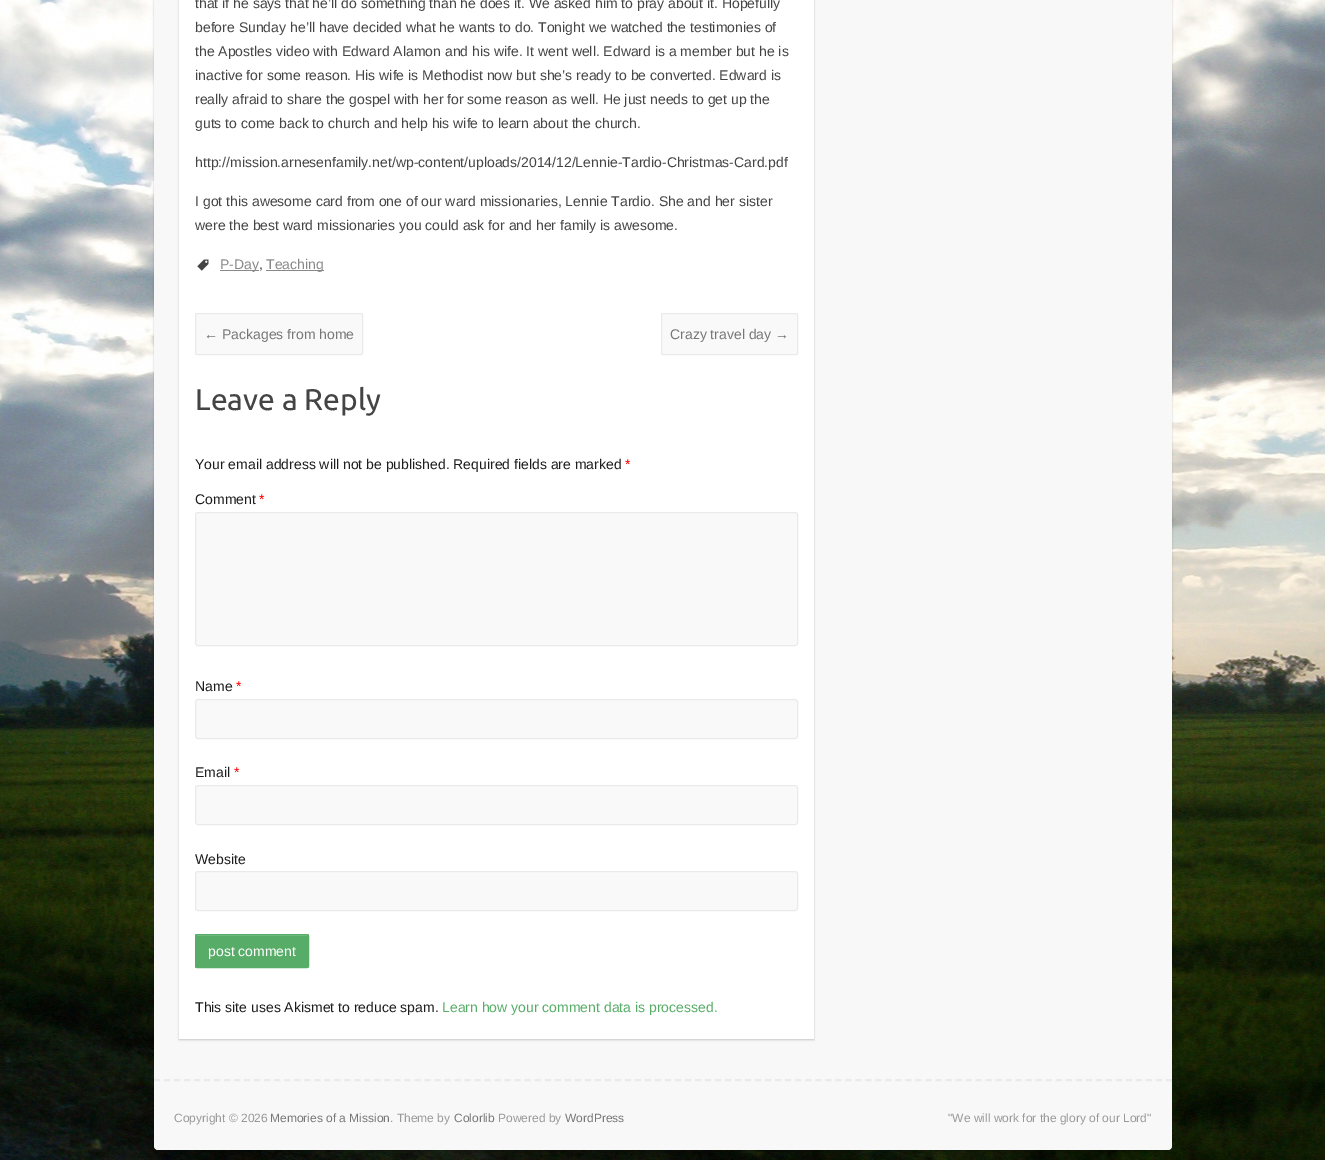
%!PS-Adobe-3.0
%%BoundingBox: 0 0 1325 1160
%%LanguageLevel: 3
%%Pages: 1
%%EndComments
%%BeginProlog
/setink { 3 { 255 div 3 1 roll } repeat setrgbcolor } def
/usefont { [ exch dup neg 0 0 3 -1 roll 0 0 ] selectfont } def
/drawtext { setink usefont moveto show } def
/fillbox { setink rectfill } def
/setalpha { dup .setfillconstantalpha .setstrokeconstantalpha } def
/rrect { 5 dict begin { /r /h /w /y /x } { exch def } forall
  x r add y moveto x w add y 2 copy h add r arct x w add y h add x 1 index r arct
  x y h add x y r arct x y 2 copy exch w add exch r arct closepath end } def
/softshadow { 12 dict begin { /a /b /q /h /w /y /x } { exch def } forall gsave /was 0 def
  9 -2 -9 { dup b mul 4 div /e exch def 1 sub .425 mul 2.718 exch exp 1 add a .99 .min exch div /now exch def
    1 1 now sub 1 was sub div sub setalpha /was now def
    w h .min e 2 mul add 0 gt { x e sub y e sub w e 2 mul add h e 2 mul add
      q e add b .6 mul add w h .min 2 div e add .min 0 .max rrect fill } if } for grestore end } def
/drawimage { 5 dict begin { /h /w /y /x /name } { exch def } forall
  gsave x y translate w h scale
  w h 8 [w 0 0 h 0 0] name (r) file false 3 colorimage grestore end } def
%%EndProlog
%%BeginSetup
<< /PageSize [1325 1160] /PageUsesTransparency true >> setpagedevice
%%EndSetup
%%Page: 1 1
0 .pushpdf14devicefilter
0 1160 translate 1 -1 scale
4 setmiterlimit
0 0 1325 1160 255 255 255 fillbox
(assets/img1.rgb) 0 0 1325 1160 drawimage
0 0 0 setink
154 -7 1018 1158 4 1 0.2 softshadow
248 248 248 setink
154 -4 1018 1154 4 rrect fill
0 0 0 setink
179 -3 635 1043 0 1 0.2 softshadow
179 0 635 1039 255 255 255 fillbox
(that if he says that he’ll do something than he does it. We asked him to pray about it. Hopefully) 195 8 /LiberationSans-Regular 14 68 68 68 drawtext
(before Sunday he’ll have decided what he wants to do. Tonight we watched the testimonies of) 195 32 /LiberationSans-Regular 14 68 68 68 drawtext
(the Apostles video with Edward Alamon and his wife. It went well. Edward is a member but he is) 195 56 /LiberationSans-Regular 14 68 68 68 drawtext
(inactive for some reason. His wife is Methodist now but she’s ready to be converted. Edward is) 195 80 /LiberationSans-Regular 14 68 68 68 drawtext
(really afraid to share the gospel with her for some reason as well. He just needs to get up the) 195 104 /LiberationSans-Regular 14 68 68 68 drawtext
(guts to come back to church and help his wife to learn about the church.) 195 128 /LiberationSans-Regular 14 68 68 68 drawtext
(http://mission.arnesenfamily.net/wp-content/uploads/2014/12/Lennie-Tardio-Christmas-Card.pdf) 195 167 /LiberationSans-Regular 14 68 68 68 drawtext
(I got this awesome card from one of our ward missionaries, Lennie Tardio. She and her sister) 195 206 /LiberationSans-Regular 14 68 68 68 drawtext
(were the best ward missionaries you could ask for and her family is awesome.) 195 230 /LiberationSans-Regular 14 68 68 68 drawtext
(assets/img2.rgb) 197 259 12 12 drawimage
220 270 39 1 136 136 136 fillbox
(P-Day) 220 269 /LiberationSans-Regular 14 136 136 136 drawtext
(,) 259 269 /LiberationSans-Regular 14 68 68 68 drawtext
266 270 58 1 136 136 136 fillbox
(Teaching) 266 269 /LiberationSans-Regular 14 136 136 136 drawtext
249 249 249 setink
195.5 313.5 167 41 1.5 rrect gsave fill grestore
234 234 234 setink
stroke
(← Packages from home) 204 339 /LiberationSans-Regular 14 119 119 119 drawtext
249 249 249 setink
661.5 313.5 136 41 1.5 rrect gsave fill grestore
234 234 234 setink
stroke
(Crazy travel day →) 670 339 /LiberationSans-Regular 14 119 119 119 drawtext
(Leave a Reply) 195 410 /Ubuntu-Regular 30 68 68 68 drawtext
(Your email address will not be published. Required fields are marked) 195 469 /LiberationSans-Regular 14 29 29 29 drawtext
(*) 625 469 /LiberationSans-Regular 14 255 0 0 drawtext
(Comment) 195 504 /LiberationSans-Regular 14 29 29 29 drawtext
(*) 259 504 /LiberationSans-Regular 14 255 0 0 drawtext
249 249 249 setink
195.5 512.5 602 133 2.5 rrect gsave fill grestore
234 234 234 setink
stroke
(Name) 195 691 /LiberationSans-Regular 14 29 29 29 drawtext
(*) 236 691 /LiberationSans-Regular 14 255 0 0 drawtext
249 249 249 setink
195.5 699.5 602 39 2.5 rrect gsave fill grestore
234 234 234 setink
stroke
(Email) 195 777 /LiberationSans-Regular 14 29 29 29 drawtext
(*) 234 777 /LiberationSans-Regular 14 255 0 0 drawtext
249 249 249 setink
195.5 785.5 602 39 2.5 rrect gsave fill grestore
234 234 234 setink
stroke
(Website) 195 864 /LiberationSans-Regular 14 29 29 29 drawtext
249 249 249 setink
195.5 871.5 602 39 2.5 rrect gsave fill grestore
234 234 234 setink
stroke
87 173 104 setink
195 934 114 34 2 rrect fill
0.2 setalpha
255 255 255 setink
197 936 moveto 308 936 lineto 308 937 lineto 308 930 292 935 289 935 curveto 197 935 lineto 196 937 lineto 196 936 196 936 197 936 curveto closepath fill
1 setalpha
87 173 104 setink
195.5 934.5 113 33 1.5 rrect stroke
(post comment) 208 956 /LiberationSans-Regular 14 255 255 255 drawtext
(This site uses Akismet to reduce spam.) 195 1012 /LiberationSans-Regular 14 29 29 29 drawtext
(Learn how your comment data is processed.) 442 1012 /LiberationSans-Regular 14 87 173 104 drawtext
234 234 234 setink
2 setlinewidth
[6 4.02] 0 setdash
154 1080 moveto 1172 1080 lineto stroke
(Copyright © 2026) 174 1122 /LiberationSans-Regular 12 153 153 153 drawtext
(Memories of a Mission) 270 1122 /LiberationSans-Regular 12 119 119 119 drawtext
(. Theme by) 390 1122 /LiberationSans-Regular 12 153 153 153 drawtext
(Colorlib) 454 1122 /LiberationSans-Regular 12 119 119 119 drawtext
(Powered by) 498 1122 /LiberationSans-Regular 12 153 153 153 drawtext
(WordPress) 565 1122 /LiberationSans-Regular 12 119 119 119 drawtext
("We will work for the glory of our Lord") 948 1122 /LiberationSans-Regular 12 153 153 153 drawtext
.poppdf14devicefilter showpage
%%EOF
